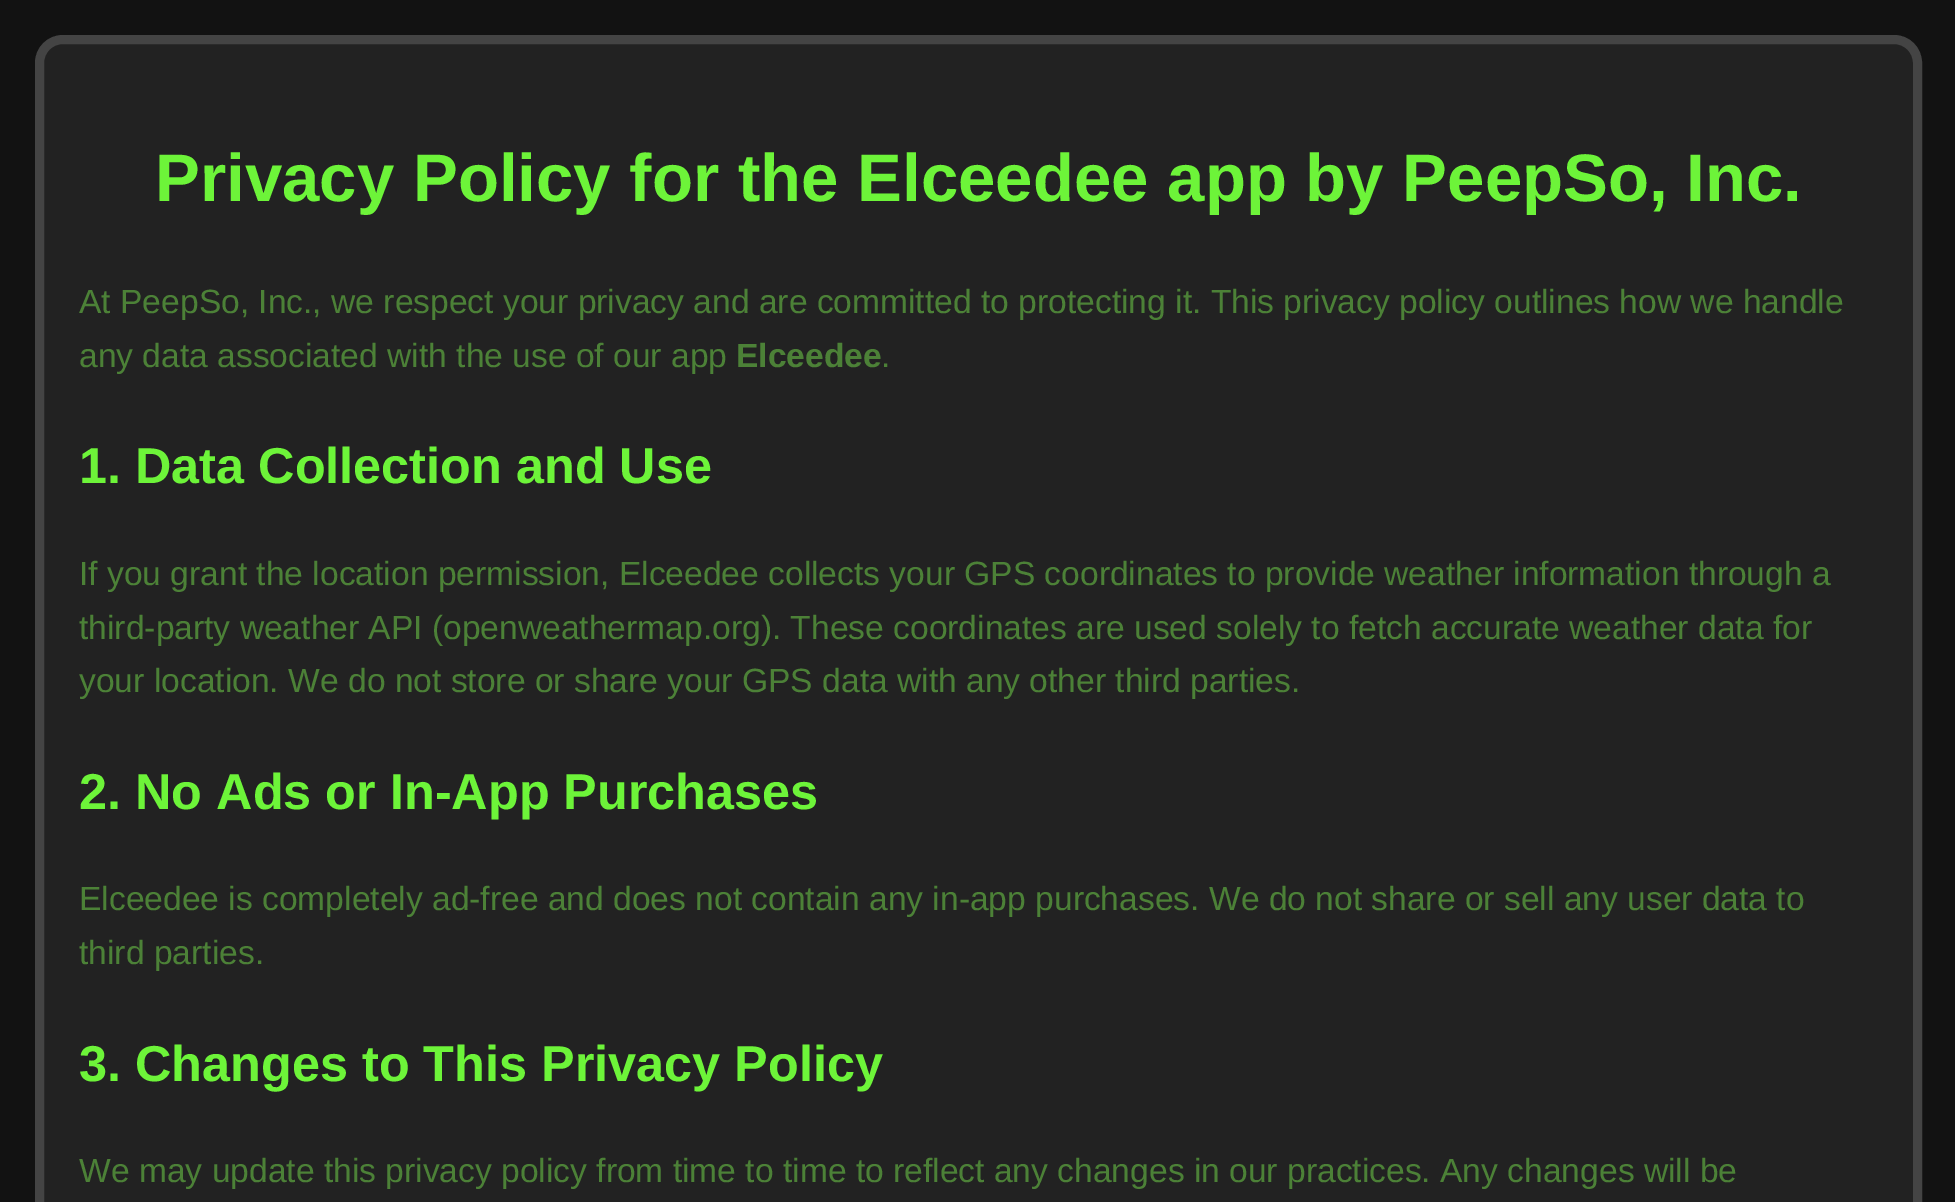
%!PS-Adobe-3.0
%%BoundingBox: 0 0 1955 1202
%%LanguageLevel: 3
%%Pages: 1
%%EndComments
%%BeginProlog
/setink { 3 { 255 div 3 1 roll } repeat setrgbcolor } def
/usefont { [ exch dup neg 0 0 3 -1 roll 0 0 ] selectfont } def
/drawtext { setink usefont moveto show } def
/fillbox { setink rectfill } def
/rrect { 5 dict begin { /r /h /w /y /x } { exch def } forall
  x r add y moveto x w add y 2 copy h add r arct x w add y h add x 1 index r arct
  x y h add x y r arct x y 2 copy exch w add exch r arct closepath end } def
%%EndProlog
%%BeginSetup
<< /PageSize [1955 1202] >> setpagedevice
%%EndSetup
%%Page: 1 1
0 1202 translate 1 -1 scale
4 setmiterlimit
0 0 1955 1202 18 18 18 fillbox
34 34 34 setink
39.5 39.5 1878 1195 23.5 rrect gsave fill grestore
68 68 68 setink
9 setlinewidth
stroke
(Privacy Policy for the Elceedee app by PeepSo, Inc.) 155 201 /LiberationSans-Bold 67.2 109 244 57 drawtext
(At PeepSo, Inc., we respect your privacy and are committed to protecting it. This privacy policy outlines how we handle) 79 313 /LiberationSans-Regular 33.6 76 129 55 drawtext
(any data associated with the use of our app) 79 367 /LiberationSans-Regular 33.6 76 129 55 drawtext
(Elceedee) 736 367 /LiberationSans-Bold 33.6 76 129 55 drawtext
(.) 881 367 /LiberationSans-Regular 33.6 76 129 55 drawtext
(1. Data Collection and Use) 79 483 /LiberationSans-Bold 50.4 109 244 57 drawtext
(If you grant the location permission, Elceedee collects your GPS coordinates to provide weather information through a) 79 585 /LiberationSans-Regular 33.6 76 129 55 drawtext
(third-party weather API \(openweathermap.org\). These coordinates are used solely to fetch accurate weather data for) 79 639 /LiberationSans-Regular 33.6 76 129 55 drawtext
(your location. We do not store or share your GPS data with any other third parties.) 79 692 /LiberationSans-Regular 33.6 76 129 55 drawtext
(2. No Ads or In-App Purchases) 79 809 /LiberationSans-Bold 50.4 109 244 57 drawtext
(Elceedee is completely ad-free and does not contain any in-app purchases. We do not share or sell any user data to) 79 910 /LiberationSans-Regular 33.6 76 129 55 drawtext
(third parties.) 79 964 /LiberationSans-Regular 33.6 76 129 55 drawtext
(3. Changes to This Privacy Policy) 79 1081 /LiberationSans-Bold 50.4 109 244 57 drawtext
(We may update this privacy policy from time to time to reflect any changes in our practices. Any changes will be) 79 1182 /LiberationSans-Regular 33.6 76 129 55 drawtext
showpage
%%EOF
